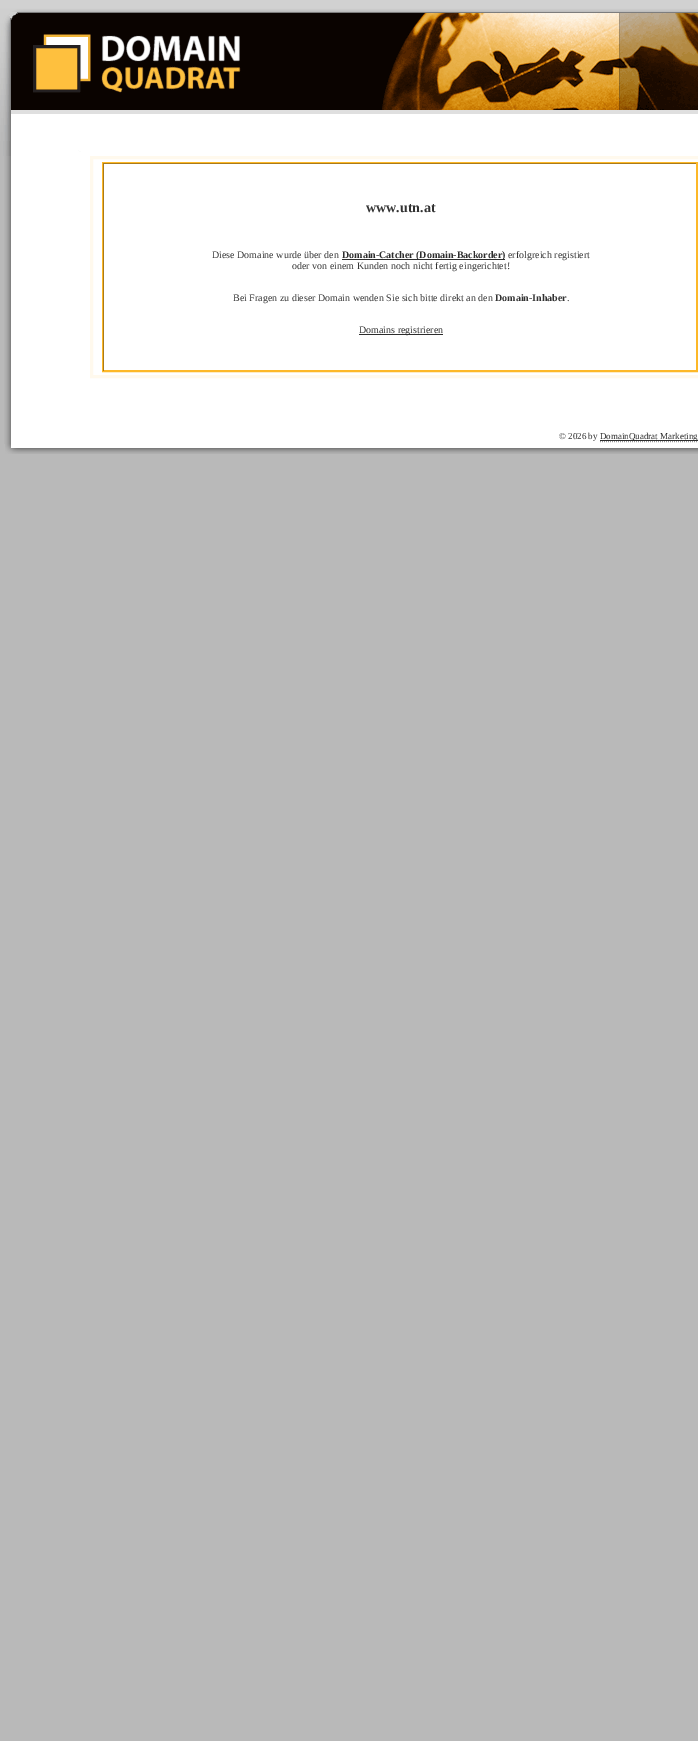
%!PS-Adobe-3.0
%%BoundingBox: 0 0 698 1741
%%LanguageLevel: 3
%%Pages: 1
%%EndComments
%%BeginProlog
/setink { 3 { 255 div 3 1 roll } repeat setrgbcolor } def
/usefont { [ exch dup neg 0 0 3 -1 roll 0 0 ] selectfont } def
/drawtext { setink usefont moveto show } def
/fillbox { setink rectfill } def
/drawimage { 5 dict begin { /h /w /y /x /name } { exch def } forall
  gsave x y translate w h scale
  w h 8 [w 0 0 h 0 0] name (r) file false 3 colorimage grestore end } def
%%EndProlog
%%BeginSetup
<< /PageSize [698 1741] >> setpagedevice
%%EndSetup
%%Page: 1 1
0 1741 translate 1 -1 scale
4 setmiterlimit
0 0 698 1741 185 185 185 fillbox
(assets/img1.rgb) 0 0 698 9 drawimage
(assets/img2.rgb) 0 9 698 147 drawimage
(assets/img3.rgb) 4 156 694 288 drawimage
255 249 237 setink
3 setlinewidth
91.5 157.5 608 219 rectstroke
253 184 40 setink
1 setlinewidth
102.5 162.5 595 209 rectstroke
103 163 594 1 169 123 27 fillbox
696 163 1 208 253 184 40 fillbox
103 370 594 1 253 184 40 fillbox
103 163 1 208 169 123 27 fillbox
(www.utn.at) 366 212 /LiberationSerif-Bold 14 51 51 51 drawtext
(Diese Domaine wurde über den) 212 258 /LiberationSerif-Regular 10 51 51 51 drawtext
342 259 163 1 45 45 45 fillbox
(Domain-Catcher \(Domain-Backorder\)) 342 258 /LiberationSerif-Bold 10 45 45 45 drawtext
(erfolgreich registiert) 508 258 /LiberationSerif-Regular 10 51 51 51 drawtext
(oder von einem Kunden noch nicht fertig eingerichtet!) 292 269 /LiberationSerif-Regular 10 51 51 51 drawtext
(Bei Fragen zu dieser Domain wenden Sie sich bitte direkt an den) 233 301 /LiberationSerif-Regular 10 51 51 51 drawtext
(Domain-Inhaber) 495 301 /LiberationSerif-Bold 10 51 51 51 drawtext
(.) 567 301 /LiberationSerif-Regular 10 51 51 51 drawtext
359 334 84 1 45 45 45 fillbox
(Domains registrieren) 359 333 /LiberationSerif-Regular 10 45 45 45 drawtext
(© 2026 by) 559 439 /LiberationSerif-Regular 9 51 51 51 drawtext
600 440 98 1 45 45 45 fillbox
(DomainQuadrat Marketing) 600 439 /LiberationSerif-Regular 9 45 45 45 drawtext
153 153 153 setink
[1 1] 0 setdash
600 441.5 moveto 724 441.5 lineto stroke
(assets/img4.rgb) 5 444 693 10 drawimage
showpage
%%EOF
